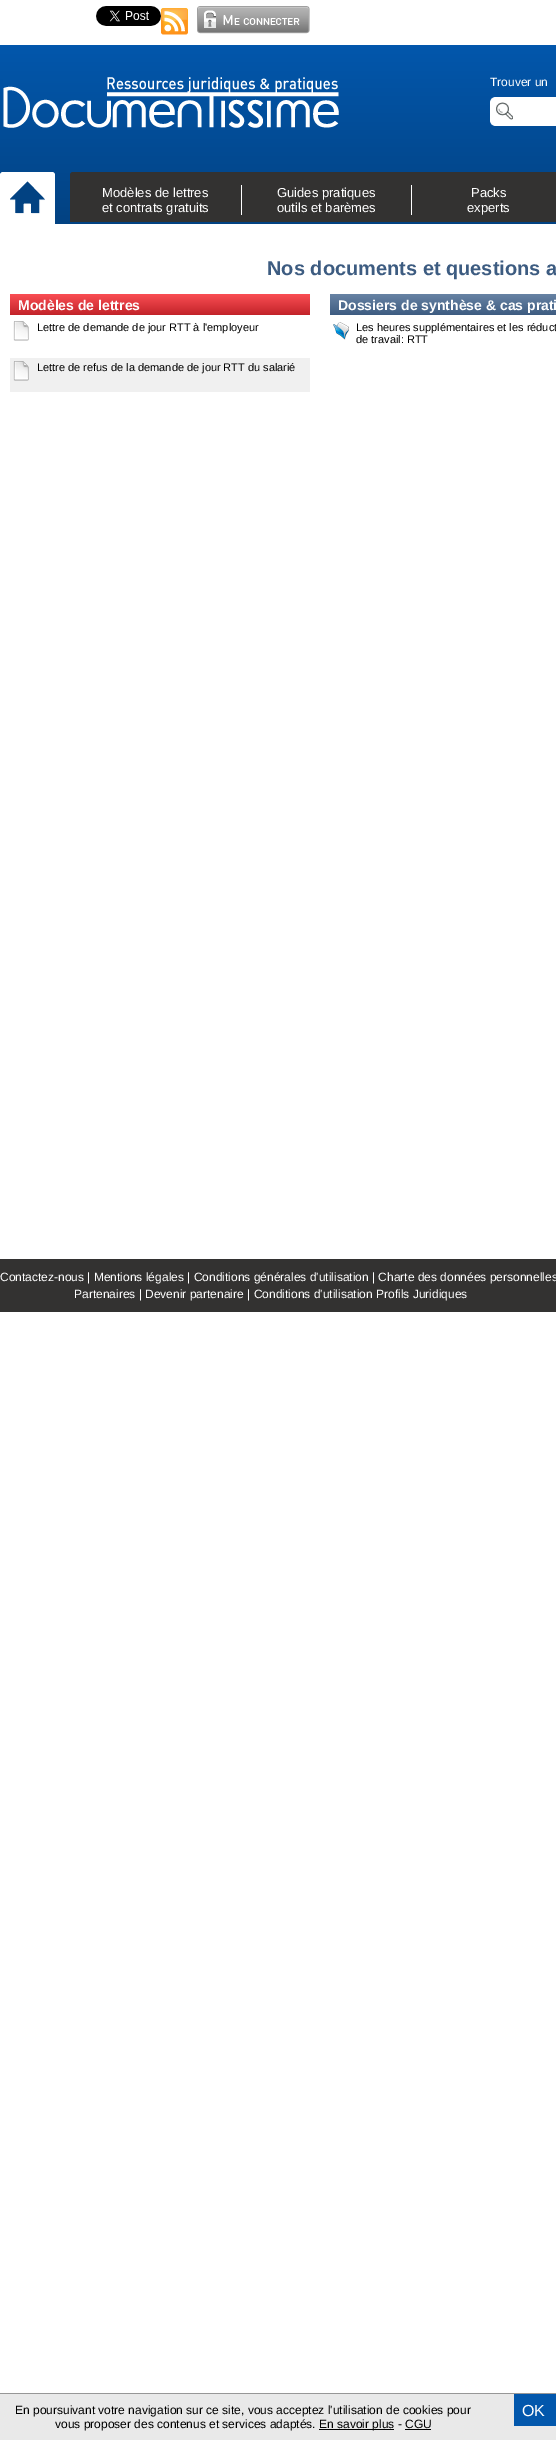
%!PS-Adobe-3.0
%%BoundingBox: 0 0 556 2440
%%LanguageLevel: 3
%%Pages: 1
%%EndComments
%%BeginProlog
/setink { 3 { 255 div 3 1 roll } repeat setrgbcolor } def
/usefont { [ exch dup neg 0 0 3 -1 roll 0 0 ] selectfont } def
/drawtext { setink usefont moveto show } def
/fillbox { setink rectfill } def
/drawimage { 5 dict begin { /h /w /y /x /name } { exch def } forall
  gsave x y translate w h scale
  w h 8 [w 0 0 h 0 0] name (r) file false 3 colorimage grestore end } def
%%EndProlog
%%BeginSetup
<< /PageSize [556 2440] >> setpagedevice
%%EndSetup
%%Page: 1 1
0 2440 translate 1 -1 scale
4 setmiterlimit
0 0 556 2440 255 255 255 fillbox
(assets/img1.rgb) 96 6 65 20 drawimage
(assets/img2.rgb) 161 8 27 27 drawimage
(assets/img3.rgb) 197 6 113 28 drawimage
gsave 0 45 moveto 556 45 lineto 556 224 lineto 0 224 lineto closepath clip newpath
<< /ShadingType 2 /ColorSpace /DeviceRGB /Coords [278 224 278 45] /Extend [true true] /Function << /FunctionType 2 /Domain [0 1] /C0 [0.008 0.259 0.51] /C1 [0.008 0.341 0.675] /N 1 >> >> shfill grestore
(assets/img4.rgb) 3 77 336 51 drawimage
(Trouver un) 490 86 /LiberationSans-Regular 12 255 255 255 drawtext
496 97 moveto 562 97 lineto 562 126 lineto 496 126 lineto 492.5 126 490 123.5 490 120 curveto 490 103 lineto 490 99.5 492.5 97 496 97 curveto closepath fill
(assets/img5.rgb) 496 102 17 18 drawimage
3 172 moveto 52 172 lineto 53.5 172 55 173.5 55 175 curveto 55 226 lineto 0 226 lineto 0 175 lineto 0 173.5 1.5 172 3 172 curveto closepath fill
(assets/img6.rgb) 10 181 35 33 drawimage
51 50 49 setink
73 172 moveto 556 172 lineto 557.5 172 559 173.5 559 175 curveto 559 222 lineto 70 222 lineto 70 175 lineto 70 173.5 71.5 172 73 172 curveto closepath fill
241 185 1 30 255 255 255 fillbox
(Modèles de lettres) 102 197 /LiberationSans-Regular 13 255 255 255 drawtext
(et contrats gratuits) 102 212 /LiberationSans-Regular 13 255 255 255 drawtext
411 185 1 30 255 255 255 fillbox
(Guides pratiques) 277 197 /LiberationSans-Regular 13 255 255 255 drawtext
(outils et barèmes) 277 212 /LiberationSans-Regular 13 255 255 255 drawtext
(Packs) 471 197 /LiberationSans-Regular 13 255 255 255 drawtext
(experts) 467 212 /LiberationSans-Regular 13 255 255 255 drawtext
(Nos documents et questions a) 267 275 /LiberationSans-Bold 20 61 92 129 drawtext
gsave 10 294 moveto 310 294 lineto 310 315 lineto 10 315 lineto closepath clip newpath
<< /ShadingType 2 /ColorSpace /DeviceRGB /Coords [10 294 10 315] /Extend [true true] /Function << /FunctionType 2 /Domain [0 1] /C0 [0.98 0.306 0.325] /C1 [0.761 0.137 0.161] /N 1 >> >> shfill grestore
(Modèles de lettres) 18 310 /LiberationSans-Bold 14 255 255 255 drawtext
(assets/img7.rgb) 13 321 16 20 drawimage
(Lettre de demande de jour RTT à l'employeur) 37 331 /LiberationSans-Regular 11 0 0 0 drawtext
10 358 300 34 240 240 240 fillbox
(assets/img8.rgb) 13 361 16 20 drawimage
(Lettre de refus de la demande de jour RTT du salarié) 37 371 /LiberationSans-Regular 11 0 0 0 drawtext
gsave 330 294 moveto 556 294 lineto 556 315 lineto 330 315 lineto closepath clip newpath
<< /ShadingType 2 /ColorSpace /DeviceRGB /Coords [330 294 330 315] /Extend [true true] /Function << /FunctionType 2 /Domain [0 1] /C0 [0.408 0.514 0.643] /C1 [0.239 0.361 0.506] /N 1 >> >> shfill grestore
(Dossiers de synthèse & cas prati) 338 310 /LiberationSans-Bold 14 255 255 255 drawtext
(assets/img9.rgb) 333 322 16 18 drawimage
(Les heures supplémentaires et les réduct) 356 331 /LiberationSans-Regular 11 0 0 0 drawtext
(de travail: RTT) 356 343 /LiberationSans-Regular 11 0 0 0 drawtext
0 1259 556 53 51 50 49 fillbox
(Contactez-nous | Mentions légales | Conditions générales d'utilisation | Charte des données personnelles) 0 1281 /LiberationSans-Regular 12 255 255 255 drawtext
(Partenaires | Devenir partenaire | Conditions d'utilisation Profils Juridiques) 74 1298 /LiberationSans-Regular 12 255 255 255 drawtext
0 2394 556 46 233 233 233 fillbox
0 2393 556 1 151 151 151 fillbox
(En poursuivant votre navigation sur ce site, vous acceptez l'utilisation de cookies pour) 15 2414 /LiberationSans-Regular 12 0 0 0 drawtext
(vous proposer des contenus et services adaptés.) 55 2428 /LiberationSans-Regular 12 0 0 0 drawtext
319 2429 75 1 0 0 0 fillbox
(En savoir plus - CGU) 319 2428 /LiberationSans-Regular 12 0 0 0 drawtext
405 2429 26 1 0 0 0 fillbox
514 2394 42 32 2 87 172 fillbox
(OK) 522 2416 /LiberationSans-Regular 16 255 255 255 drawtext
showpage
%%EOF
